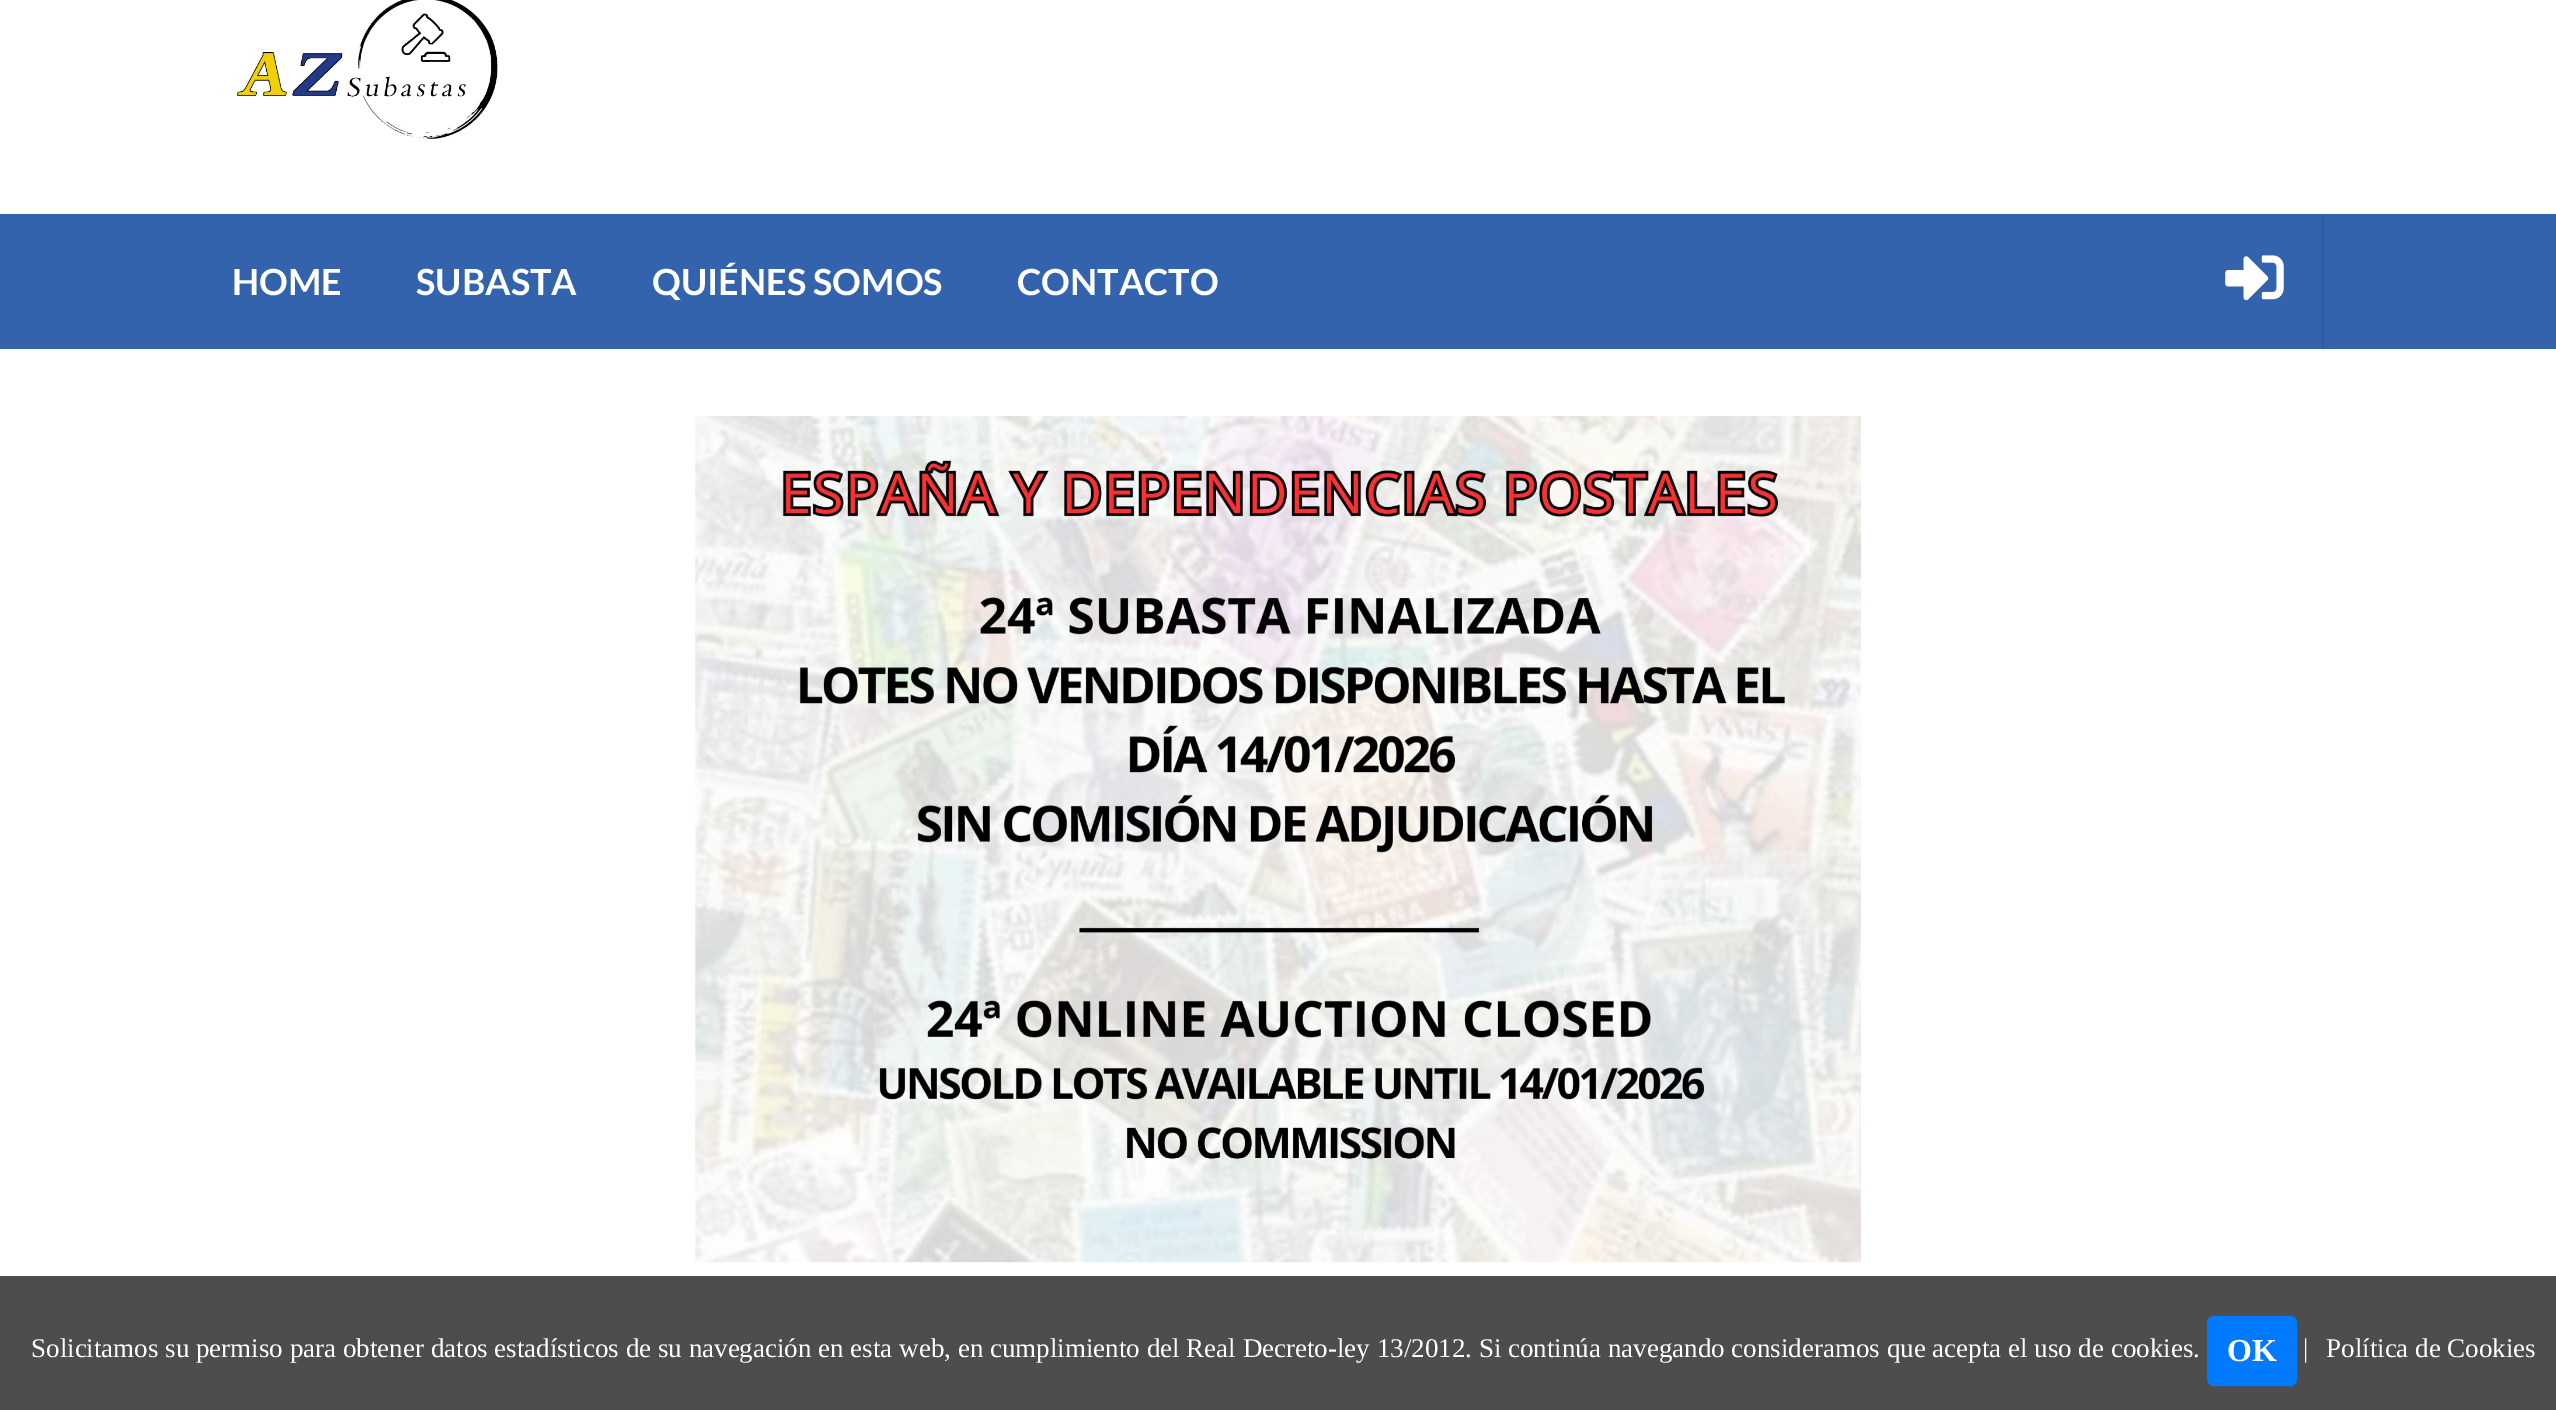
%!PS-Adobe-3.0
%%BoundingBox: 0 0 2556 1410
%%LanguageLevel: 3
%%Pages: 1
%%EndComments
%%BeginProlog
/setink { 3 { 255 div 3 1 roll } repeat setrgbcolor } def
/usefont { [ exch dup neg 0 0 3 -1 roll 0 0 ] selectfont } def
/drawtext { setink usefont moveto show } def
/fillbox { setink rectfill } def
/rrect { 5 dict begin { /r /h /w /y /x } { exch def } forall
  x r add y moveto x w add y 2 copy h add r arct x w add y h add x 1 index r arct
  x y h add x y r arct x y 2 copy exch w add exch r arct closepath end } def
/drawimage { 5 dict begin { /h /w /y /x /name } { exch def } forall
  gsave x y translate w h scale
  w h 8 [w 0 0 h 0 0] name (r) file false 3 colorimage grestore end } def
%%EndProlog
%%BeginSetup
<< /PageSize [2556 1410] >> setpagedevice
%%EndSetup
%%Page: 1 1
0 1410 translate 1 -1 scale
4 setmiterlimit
0 0 2556 1410 255 255 255 fillbox
(assets/img1.rgb) 237 0 261 139 drawimage
0 214 2556 135 51 99 172 fillbox
(HOME) 232 295 /Lato-Bold 36 255 255 255 drawtext
(SUBASTA) 416 295 /Lato-Bold 36 255 255 255 drawtext
(QUIÉNES SOMOS) 652 295 /Lato-Bold 36 255 255 255 drawtext
(CONTACTO) 1017 295 /Lato-Bold 36 255 255 255 drawtext
2322 214 2 135 47 92 160 fillbox
(assets/img2.rgb) 2225 255 59 46 drawimage
(assets/img3.rgb) 695 416 1166 847 drawimage
0 1276 2556 134 77 77 77 fillbox
(Solicitamos su permiso para obtener datos estadísticos de su navegación en esta web, en cumplimiento del Real Decreto-ley 13/2012. Si continúa navegando consideramos que acepta el uso de cookies.) 31 1357 /LiberationSerif-Regular 27 255 255 255 drawtext
0 123 255 setink
2208 1317 88 68 6 rrect gsave fill grestore
2 setlinewidth
stroke
(OK) 2227 1361 /LiberationSerif-Bold 32 255 255 255 drawtext
(|) 2303 1357 /LiberationSerif-Regular 27 255 255 255 drawtext
(Política de Cookies) 2326 1357 /LiberationSerif-Regular 27 255 255 255 drawtext
showpage
%%EOF
